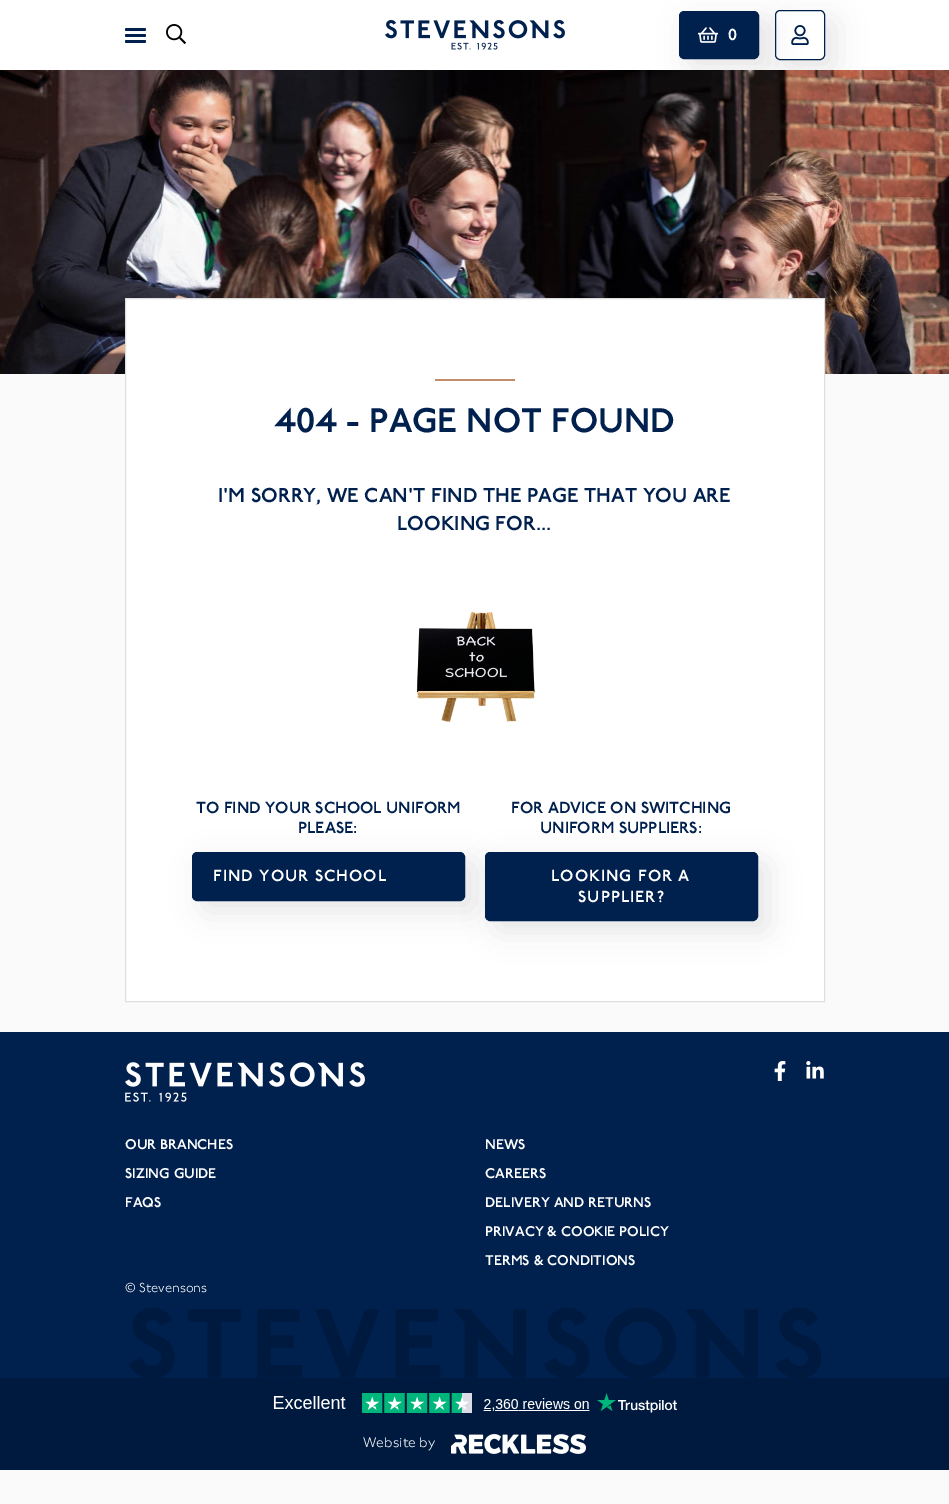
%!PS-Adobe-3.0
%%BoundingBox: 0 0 949 1504
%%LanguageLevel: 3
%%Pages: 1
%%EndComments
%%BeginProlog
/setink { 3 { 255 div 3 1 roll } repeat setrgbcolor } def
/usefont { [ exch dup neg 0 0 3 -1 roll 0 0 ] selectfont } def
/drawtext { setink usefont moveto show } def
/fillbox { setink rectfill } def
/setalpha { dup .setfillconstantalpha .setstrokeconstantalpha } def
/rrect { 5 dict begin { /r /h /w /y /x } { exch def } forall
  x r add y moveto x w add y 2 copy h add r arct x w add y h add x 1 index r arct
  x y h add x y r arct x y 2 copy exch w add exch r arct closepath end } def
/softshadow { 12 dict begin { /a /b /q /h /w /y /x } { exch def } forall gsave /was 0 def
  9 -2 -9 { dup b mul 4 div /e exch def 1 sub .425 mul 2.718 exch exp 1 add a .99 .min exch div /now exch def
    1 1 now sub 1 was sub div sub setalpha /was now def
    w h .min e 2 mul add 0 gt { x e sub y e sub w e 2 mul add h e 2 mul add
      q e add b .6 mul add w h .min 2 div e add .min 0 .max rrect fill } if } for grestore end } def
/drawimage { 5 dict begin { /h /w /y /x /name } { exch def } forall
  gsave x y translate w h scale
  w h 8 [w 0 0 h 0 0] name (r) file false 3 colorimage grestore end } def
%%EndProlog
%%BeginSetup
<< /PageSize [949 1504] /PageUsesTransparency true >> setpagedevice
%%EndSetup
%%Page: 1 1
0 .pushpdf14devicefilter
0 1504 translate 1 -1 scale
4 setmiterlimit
0 0 949 1504 250 250 250 fillbox
0 0 949 70 255 255 255 fillbox
0 32 78 setink
125 28 21 3 1.5 rrect fill
125 34 21 3 1.5 rrect fill
125 40 21 3 1.5 rrect fill
(assets/img1.rgb) 166 24 20 20 drawimage
(assets/img2.rgb) 385 20 180 30 drawimage
(assets/img5.rgb) 0 70 949 304 drawimage
0 0 0 setink
689 21 80 48 5 15 0.1 softshadow
0 32 78 setink
679.5 11.5 79 47 4.5 rrect gsave fill grestore
stroke
(assets/img3.rgb) 698 27 20 16 drawimage
/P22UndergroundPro-SemiBold 16 usefont
255 255 255 setink
728 40 moveto 1 0 (0) ashow
gsave
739 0 moveto 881 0 lineto 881 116 lineto 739 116 lineto closepath 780 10 moveto 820 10 lineto 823 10 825 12 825 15 curveto 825 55 lineto 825 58 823 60 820 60 curveto 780 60 lineto 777 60 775 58 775 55 curveto 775 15 lineto 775 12 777 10 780 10 curveto closepath eoclip newpath
0 0 0 setink
785 20 50 50 5 15 0.1 softshadow
grestore
0 32 78 setink
775.5 10.5 49 49 4.5 rrect stroke
(assets/img4.rgb) 791 25 18 20 drawimage
255 255 255 setink
125.5 298.5 moveto 824.5 298.5 lineto 824.5 1001.5 lineto 125.5 1001.5 lineto closepath gsave fill grestore
222 222 222 setink
stroke
435 379 80 2 193 141 107 fillbox
(404 - PAGE NOT FOUND) 274 432 /P22UndergroundPro-SemiBold 34 0 32 78 drawtext
(I'M SORRY, WE CAN'T FIND THE PAGE THAT YOU ARE) 218 502 /P22UndergroundPro-SemiBold 20 0 32 78 drawtext
(LOOKING FOR...) 397 530 /P22UndergroundPro-SemiBold 20 0 32 78 drawtext
(assets/img6.rgb) 416 611 119 111 drawimage
(TO FIND YOUR SCHOOL UNIFORM) 196 813 /P22UndergroundPro-SemiBold 16 0 32 78 drawtext
0 0 0 setink
202 862 273 49 5 15 0.1 softshadow
(PLEASE:) 298 833 /P22UndergroundPro-SemiBold 16 0 32 78 drawtext
192.5 852.5 272 48 4.5 rrect gsave fill grestore
stroke
255 255 255 setink
213 881 moveto 1 0 (FIND YOUR SCHOOL) ashow
(FOR ADVICE ON SWITCHING) 511 813 /P22UndergroundPro-SemiBold 16 0 32 78 drawtext
0 0 0 setink
495 862 273 69 5 15 0.1 softshadow
(UNIFORM SUPPLIERS:) 540 833 /P22UndergroundPro-SemiBold 16 0 32 78 drawtext
485.5 852.5 272 68 4.5 rrect gsave fill grestore
stroke
255 255 255 setink
551 881 moveto 1 0 (LOOKING FOR A) ashow
578 902 moveto 1 0 (SUPPLIER?) ashow
0 1032 949 346 0 32 78 fillbox
(assets/img7.rgb) 125 1062 240 40 drawimage
(assets/img8.rgb) 774 1061 12 20 drawimage
(assets/img9.rgb) 806 1061 18 18 drawimage
(OUR BRANCHES) 125 1149 /P22UndergroundPro-SemiBold 14 255 255 255 drawtext
(SIZING GUIDE) 125 1178 /P22UndergroundPro-SemiBold 14 255 255 255 drawtext
(FAQS) 125 1207 /P22UndergroundPro-SemiBold 14 255 255 255 drawtext
(NEWS) 485 1149 /P22UndergroundPro-SemiBold 14 255 255 255 drawtext
(CAREERS) 485 1178 /P22UndergroundPro-SemiBold 14 255 255 255 drawtext
(DELIVERY AND RETURNS) 485 1207 /P22UndergroundPro-SemiBold 14 255 255 255 drawtext
(PRIVACY & COOKIE POLICY) 485 1236 /P22UndergroundPro-SemiBold 14 255 255 255 drawtext
(TERMS & CONDITIONS) 485 1265 /P22UndergroundPro-SemiBold 14 255 255 255 drawtext
(© Stevensons) 125 1292 /P22UndergroundPro-Light 13 255 255 255 drawtext
(assets/img10.rgb) 129 1308 692 70 drawimage
0 1378 949 92 0 26 63 fillbox
(assets/img11.rgb) 273 1393 404 20 drawimage
(Website by) 363 1447 /P22UndergroundPro-Light 14 255 255 255 drawtext
(assets/img12.rgb) 451 1434 135 20 drawimage
.poppdf14devicefilter showpage
%%EOF
